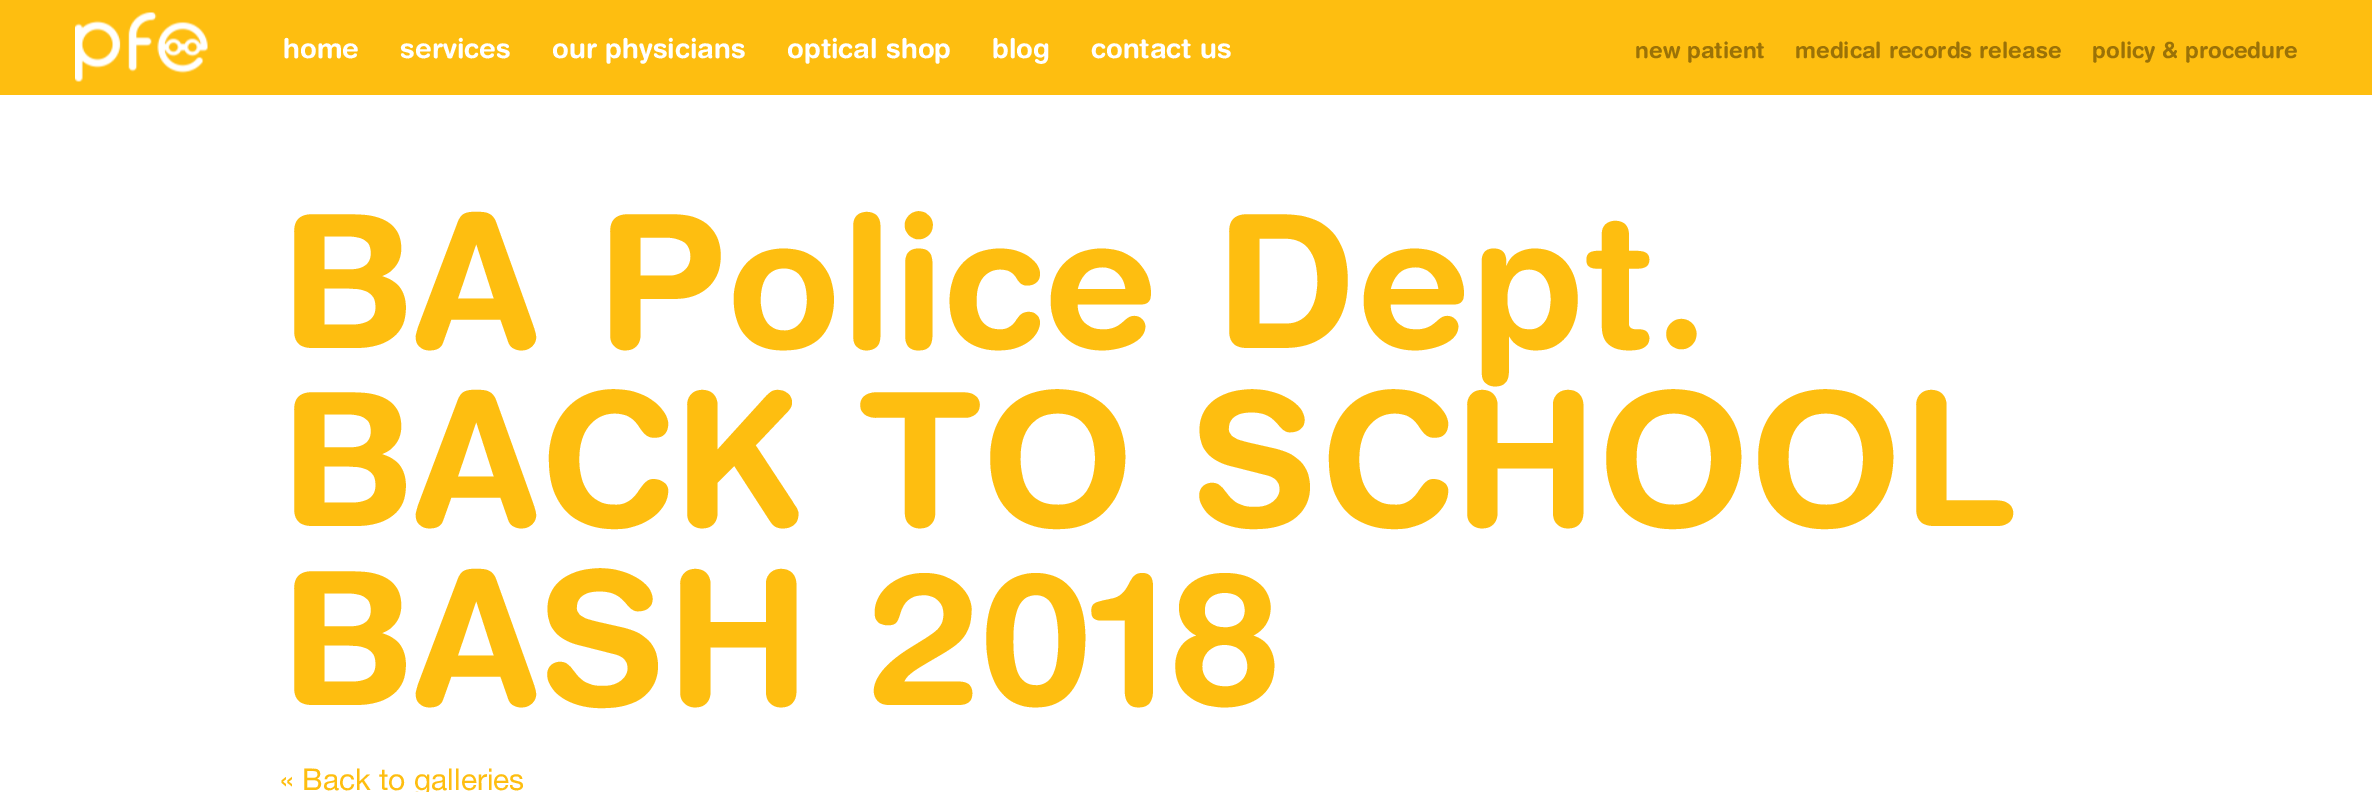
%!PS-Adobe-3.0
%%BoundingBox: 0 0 2372 792
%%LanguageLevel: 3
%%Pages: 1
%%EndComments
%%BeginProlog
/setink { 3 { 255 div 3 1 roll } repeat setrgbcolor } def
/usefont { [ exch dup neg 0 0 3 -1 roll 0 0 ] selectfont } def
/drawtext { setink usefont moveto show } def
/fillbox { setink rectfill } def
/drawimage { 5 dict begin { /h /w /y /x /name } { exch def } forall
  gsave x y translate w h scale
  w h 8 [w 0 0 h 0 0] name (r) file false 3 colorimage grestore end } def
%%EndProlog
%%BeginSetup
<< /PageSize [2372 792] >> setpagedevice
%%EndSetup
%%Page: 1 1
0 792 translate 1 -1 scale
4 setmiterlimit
0 0 2372 792 255 255 255 fillbox
0 0 2372 95 254 190 16 fillbox
(assets/img1.rgb) 75 12 133 70 drawimage
(home) 283 58 /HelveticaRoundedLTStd-Bold 27.5 255 255 255 drawtext
(services) 400 58 /HelveticaRoundedLTStd-Bold 27.5 255 255 255 drawtext
(our physicians) 552 58 /HelveticaRoundedLTStd-Bold 27.5 255 255 255 drawtext
(optical shop) 787 58 /HelveticaRoundedLTStd-Bold 27.5 255 255 255 drawtext
(blog) 992 58 /HelveticaRoundedLTStd-Bold 27.5 255 255 255 drawtext
(contact us) 1091 58 /HelveticaRoundedLTStd-Bold 27.5 255 255 255 drawtext
(new patient) 1635 58 /HelveticaRoundedLTStd-Bold 22.5 155 114 7 drawtext
(medical records release) 1795 58 /HelveticaRoundedLTStd-Bold 22.5 155 114 7 drawtext
(policy & procedure) 2092 58 /HelveticaRoundedLTStd-Bold 22.5 155 114 7 drawtext
(BA Police Dept.) 280 348 /HelveticaRoundedLTStd-Bold 186.25 254 190 16 drawtext
(BACK TO SCHOOL) 280 526 /HelveticaRoundedLTStd-Bold 186.25 254 190 16 drawtext
(BASH 2018) 280 705 /HelveticaRoundedLTStd-Bold 186.25 254 190 16 drawtext
(« Back to galleries) 280 790 /HelveticaNeue-Regular 30 254 190 16 drawtext
showpage
%%EOF
